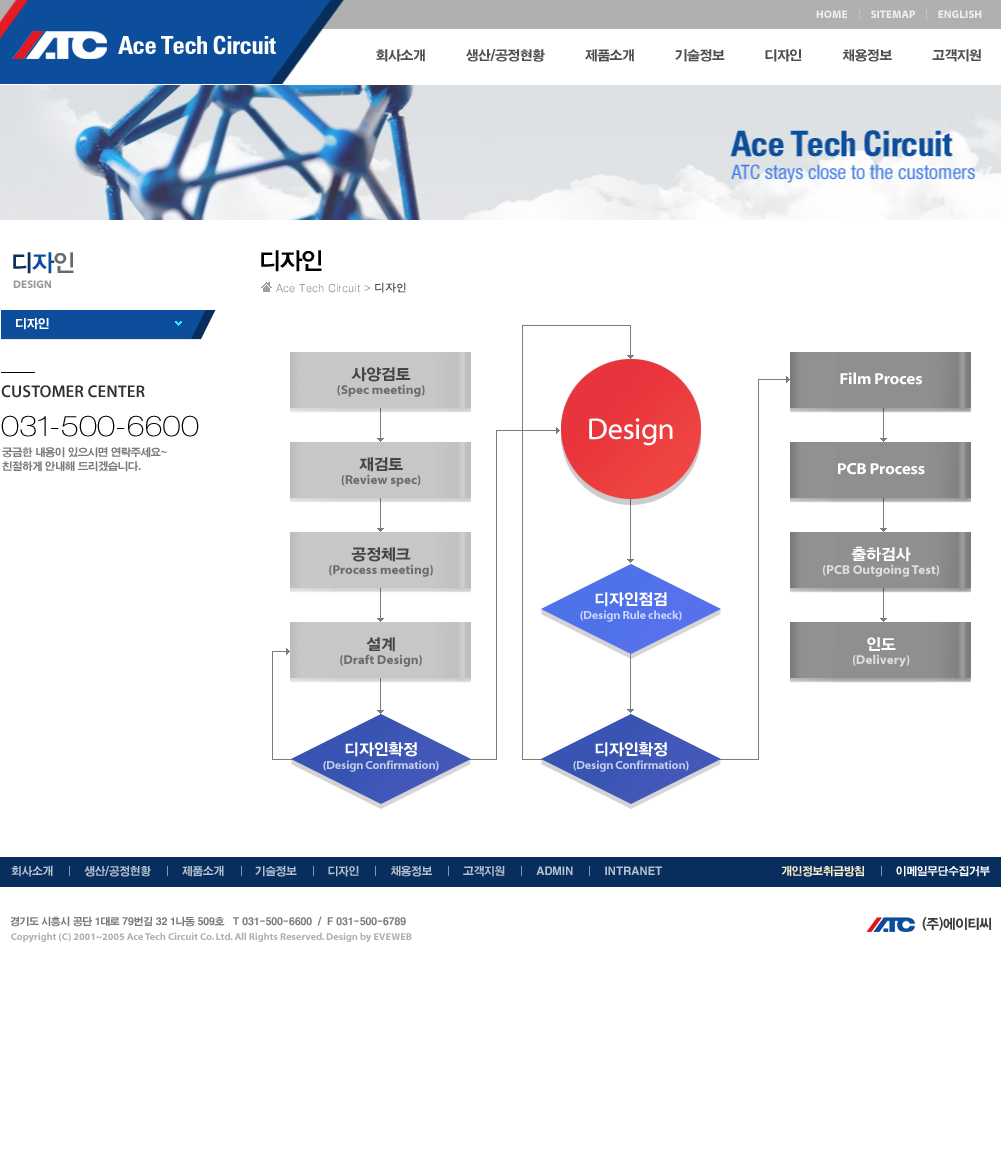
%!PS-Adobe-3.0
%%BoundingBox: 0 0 1001 1156
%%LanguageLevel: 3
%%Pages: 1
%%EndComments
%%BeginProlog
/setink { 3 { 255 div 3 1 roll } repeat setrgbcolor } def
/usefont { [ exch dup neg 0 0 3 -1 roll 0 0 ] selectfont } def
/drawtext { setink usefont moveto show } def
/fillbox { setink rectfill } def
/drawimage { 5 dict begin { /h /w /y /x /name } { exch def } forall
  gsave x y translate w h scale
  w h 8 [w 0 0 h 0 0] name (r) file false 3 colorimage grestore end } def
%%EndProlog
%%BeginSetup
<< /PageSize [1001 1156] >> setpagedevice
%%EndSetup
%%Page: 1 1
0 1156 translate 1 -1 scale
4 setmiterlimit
0 0 1001 1156 255 255 255 fillbox
(assets/img1.rgb) 0 0 1001 84 drawimage
(assets/img2.rgb) 816 10 44 9 drawimage
(assets/img3.rgb) 871 10 56 9 drawimage
(assets/img4.rgb) 938 10 44 8 drawimage
(assets/img5.rgb) 12 31 264 28 drawimage
(assets/img6.rgb) 376 49 49 13 drawimage
(assets/img7.rgb) 466 49 79 13 drawimage
(assets/img8.rgb) 585 49 49 13 drawimage
(assets/img9.rgb) 675 49 50 13 drawimage
(assets/img10.rgb) 765 49 37 13 drawimage
(assets/img11.rgb) 842 49 50 13 drawimage
(assets/img12.rgb) 932 49 49 13 drawimage
(assets/img13.rgb) 0 85 1001 135 drawimage
(assets/img14.rgb) 13 252 61 36 drawimage
(assets/img15.rgb) 1 310 215 30 drawimage
(assets/img16.rgb) 1 372 198 100 drawimage
(assets/img17.rgb) 261 250 61 22 drawimage
(assets/img18.rgb) 261 282 11 10 drawimage
(Ace Tech Circuit >) 276 292 /Dotum-Regular 11 136 136 136 drawtext
(디자인) 374 292 /Dotum-Bold 11 65 65 65 drawtext
(assets/img19.rgb) 272 325 699 484 drawimage
0 857 1001 30 7 46 92 fillbox
(assets/img20.rgb) 11 865 979 12 drawimage
(assets/img21.rgb) 10 916 981 27 drawimage
showpage
%%EOF
